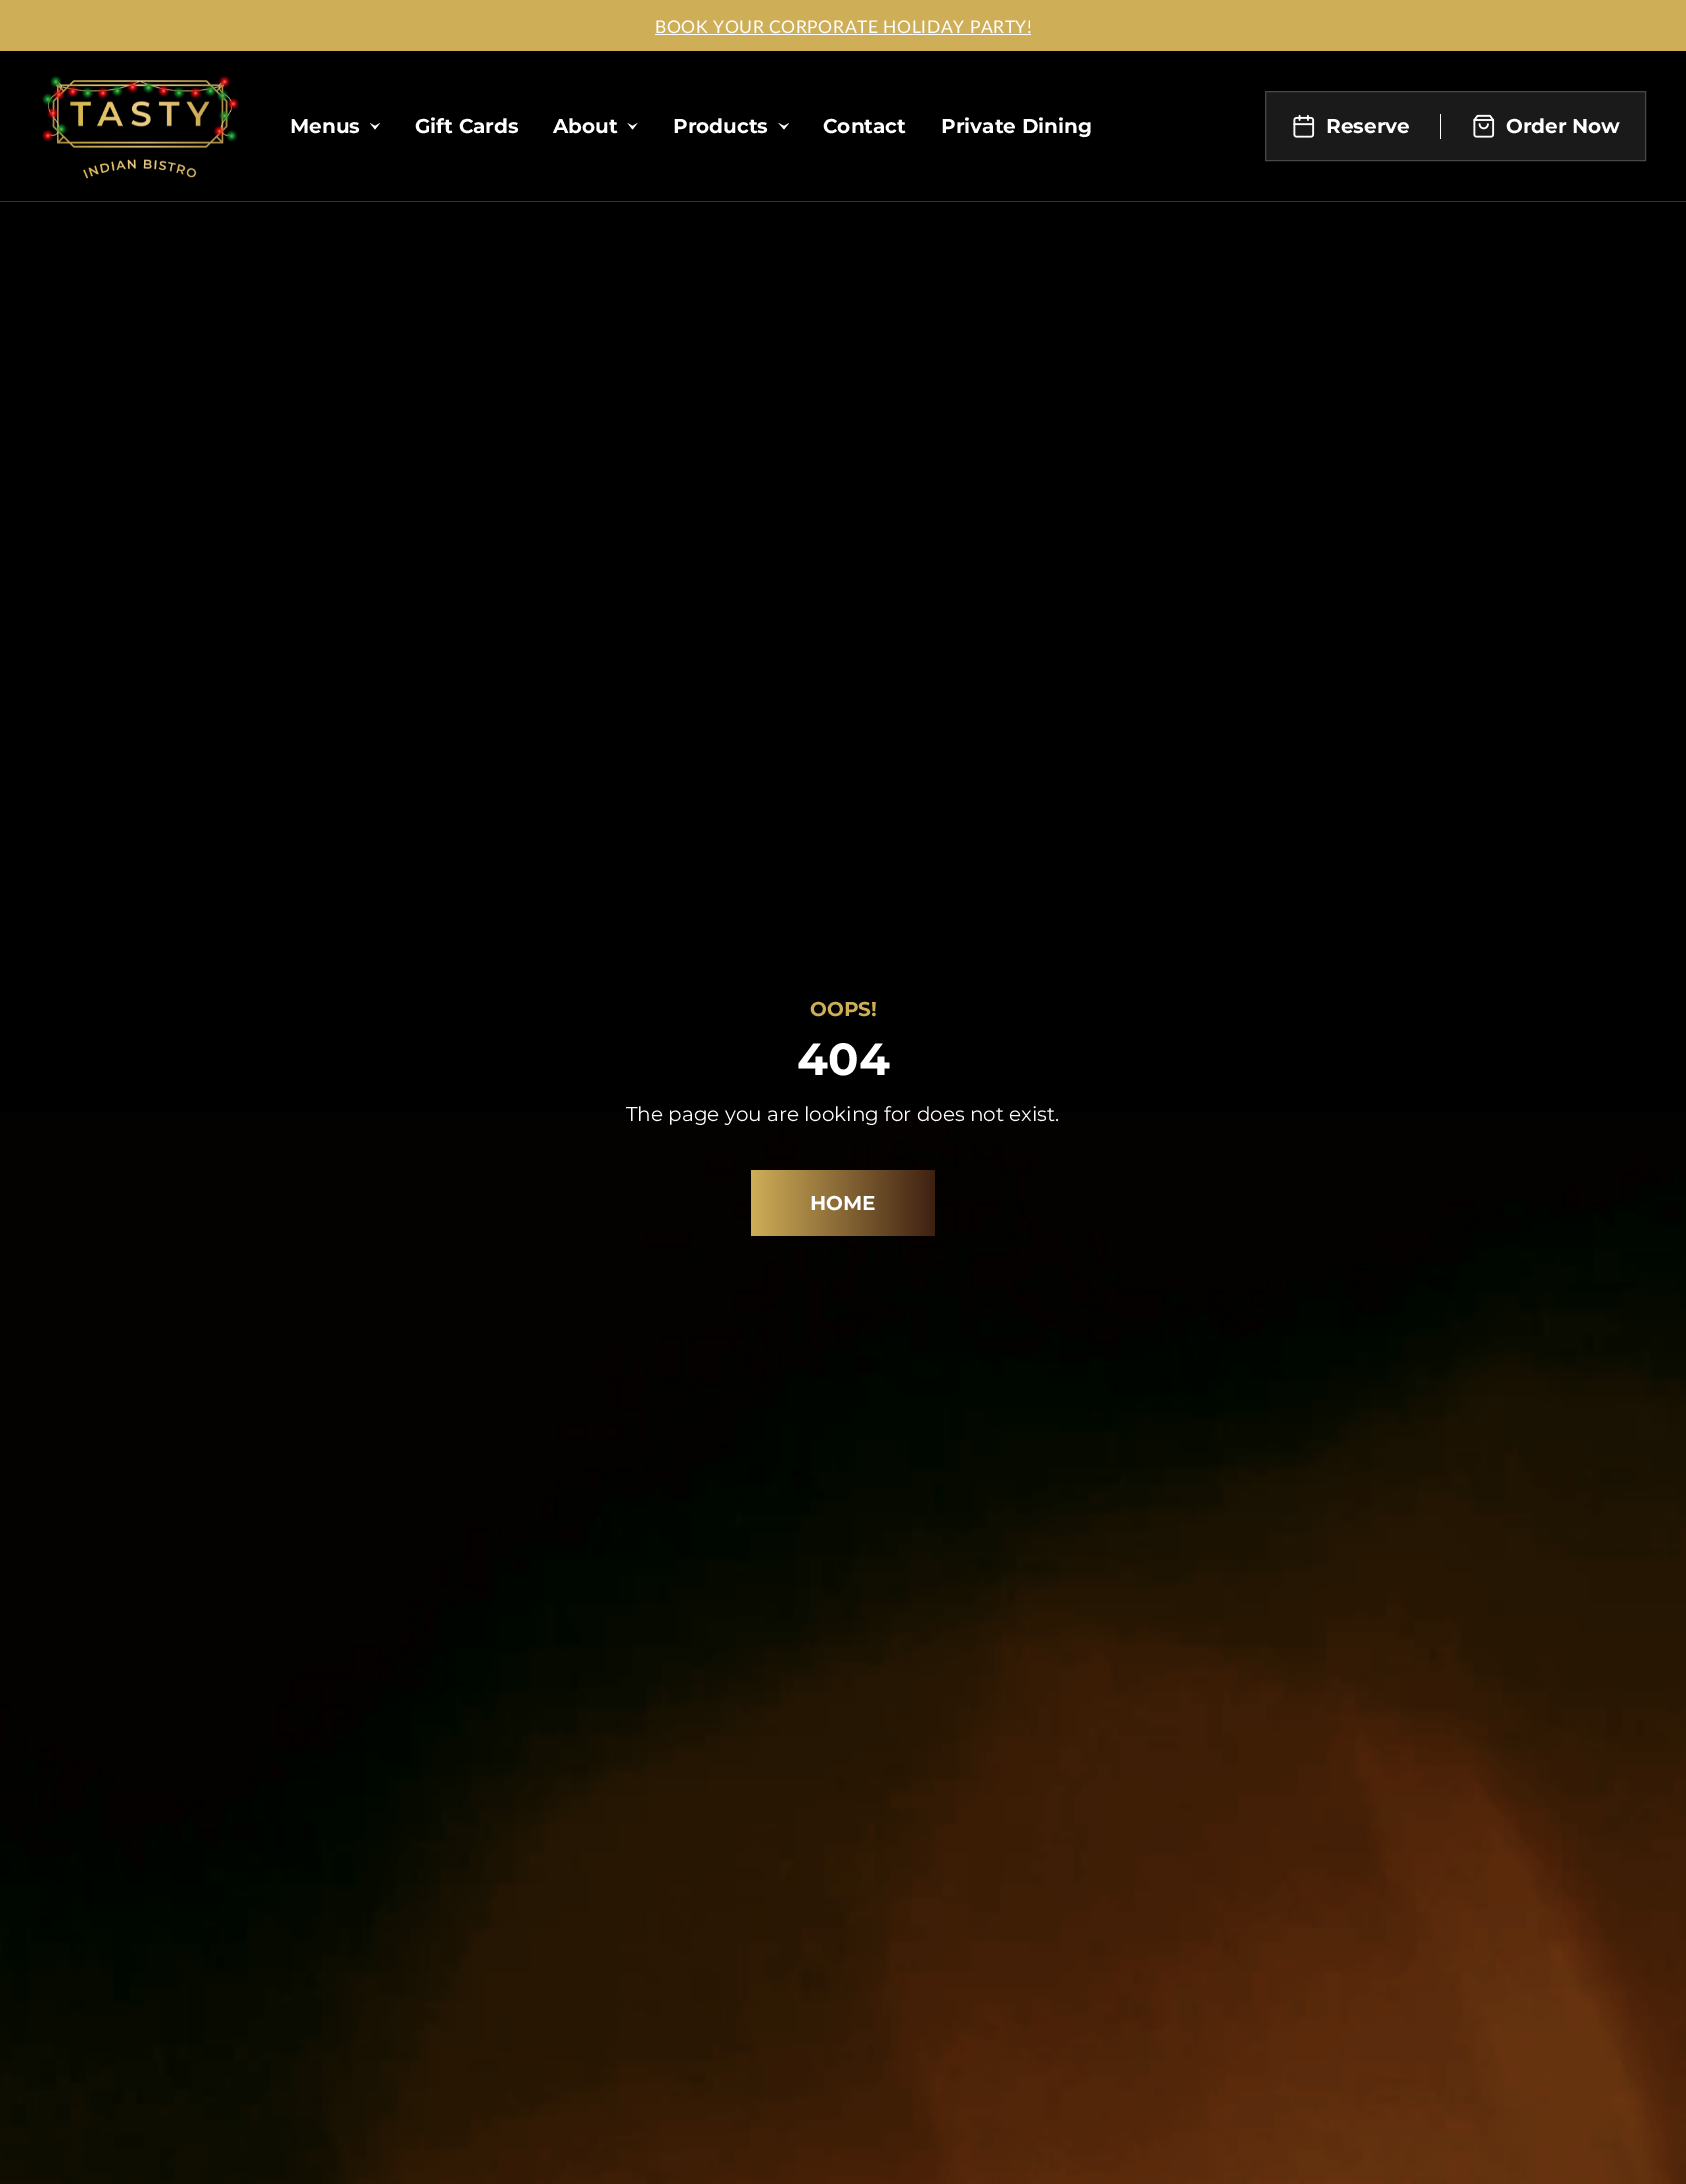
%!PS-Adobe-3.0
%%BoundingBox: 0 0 1686 2184
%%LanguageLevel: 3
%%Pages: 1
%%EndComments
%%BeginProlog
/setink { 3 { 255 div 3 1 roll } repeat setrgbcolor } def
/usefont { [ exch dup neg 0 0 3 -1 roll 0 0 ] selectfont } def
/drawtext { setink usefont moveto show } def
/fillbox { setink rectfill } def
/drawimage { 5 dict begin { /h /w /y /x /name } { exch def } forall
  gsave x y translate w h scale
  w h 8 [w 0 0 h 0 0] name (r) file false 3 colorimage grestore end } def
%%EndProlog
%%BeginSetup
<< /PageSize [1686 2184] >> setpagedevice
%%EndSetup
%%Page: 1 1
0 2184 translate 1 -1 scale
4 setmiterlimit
0 0 1686 2184 0 0 0 fillbox
0 201 1686 1 51 51 51 fillbox
0 0 1686 51 207 174 88 fillbox
/Lato-Regular 17.5 usefont
255 255 255 setink
655 33 moveto 0.55 0 (BOOK YOUR CORPORATE HOLIDAY PARTY!) ashow
655 34 376 1 255 255 255 fillbox
(assets/img1.rgb) 41 75 198 104 drawimage
(Menus) 290 133 /Montserrat-Bold 20 255 255 255 drawtext
370 123 moveto 375 129.5 lineto 380 123 lineto 375 126 lineto closepath fill
(Gift Cards) 415 133 /Montserrat-Bold 20 255 255 255 drawtext
(About) 553 133 /Montserrat-Bold 20 255 255 255 drawtext
627.5 123 moveto 632.5 129.5 lineto 637.5 123 lineto 632.5 126 lineto closepath fill
(Products) 673 133 /Montserrat-Bold 20 255 255 255 drawtext
778.5 123 moveto 784 129.5 lineto 789 123 lineto 784 126 lineto closepath fill
(Contact) 823 133 /Montserrat-Bold 20 255 255 255 drawtext
(Private Dining) 941 133 /Montserrat-Bold 20 255 255 255 drawtext
26 26 26 setink
1265.5 91.5 moveto 1645.5 91.5 lineto 1645.5 160.5 lineto 1265.5 160.5 lineto closepath gsave fill grestore
72 72 72 setink
stroke
(assets/img2.rgb) 1293 114 22 24 drawimage
(Reserve) 1326 133 /Montserrat-Bold 20 255 255 255 drawtext
1440 114 1 25 255 255 255 fillbox
(assets/img3.rgb) 1473 114 22 24 drawimage
(Order Now) 1506 133 /Montserrat-Bold 20 255 255 255 drawtext
(assets/img4.rgb) 0 1113 1686 1071 drawimage
(OOPS!) 810 1016 /Montserrat-Bold 20 207 174 88 drawtext
(404) 797 1075 /Montserrat-Bold 45 255 255 255 drawtext
(The page you are looking for does not exist.) 626 1121 /Montserrat-Regular 20 255 255 255 drawtext
gsave 751 1170 moveto 935 1170 lineto 935 1236 lineto 751 1236 lineto closepath clip newpath
<< /ShadingType 2 /ColorSpace /DeviceRGB /Coords [751 1203 935 1203] /Extend [true true] /Function << /FunctionType 2 /Domain [0 1] /C0 [0.812 0.682 0.345] /C1 [0.243 0.125 0.071] /N 1 >> >> shfill grestore
(HOME) 810 1210 /Montserrat-Bold 20 255 255 255 drawtext
showpage
%%EOF
